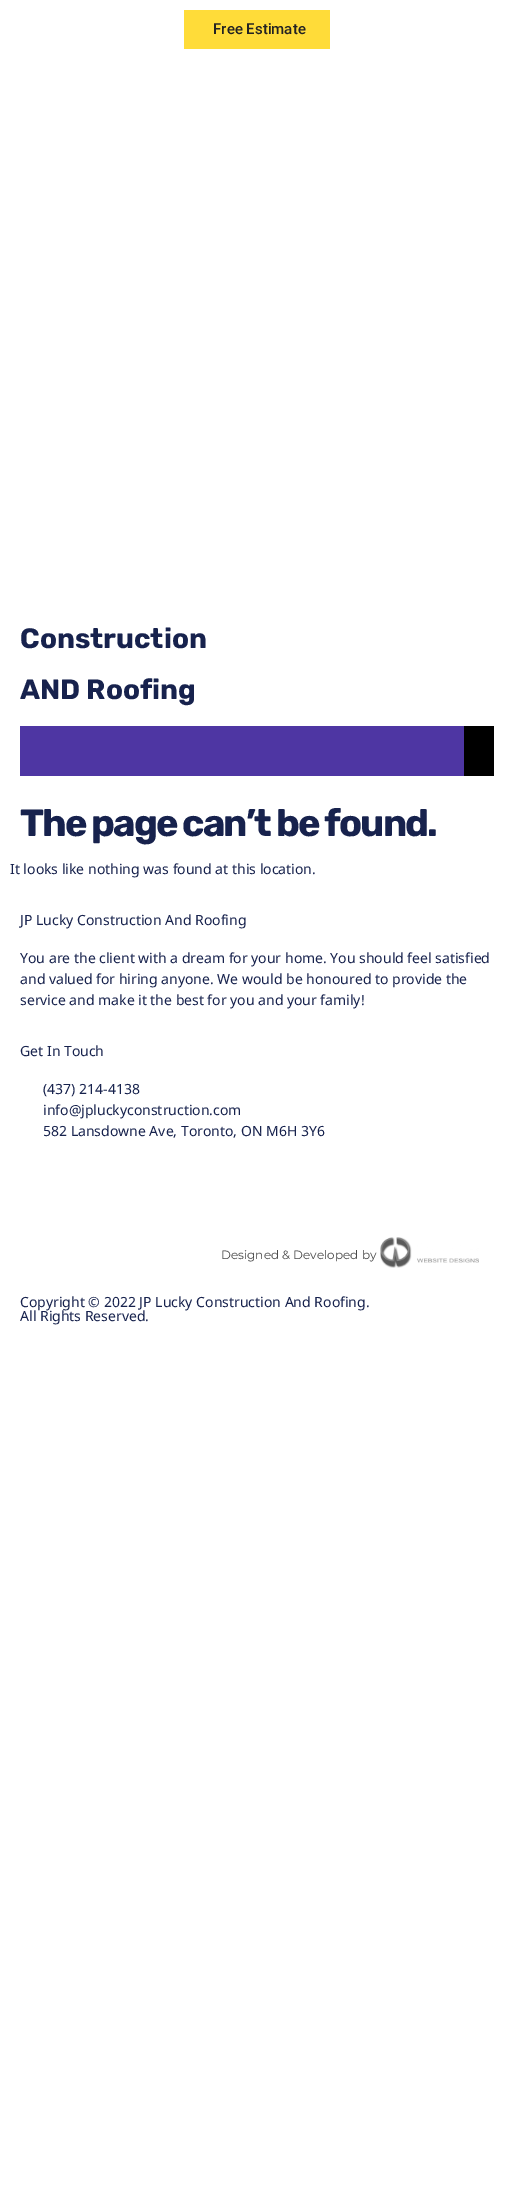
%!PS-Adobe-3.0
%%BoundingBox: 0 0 514 2197
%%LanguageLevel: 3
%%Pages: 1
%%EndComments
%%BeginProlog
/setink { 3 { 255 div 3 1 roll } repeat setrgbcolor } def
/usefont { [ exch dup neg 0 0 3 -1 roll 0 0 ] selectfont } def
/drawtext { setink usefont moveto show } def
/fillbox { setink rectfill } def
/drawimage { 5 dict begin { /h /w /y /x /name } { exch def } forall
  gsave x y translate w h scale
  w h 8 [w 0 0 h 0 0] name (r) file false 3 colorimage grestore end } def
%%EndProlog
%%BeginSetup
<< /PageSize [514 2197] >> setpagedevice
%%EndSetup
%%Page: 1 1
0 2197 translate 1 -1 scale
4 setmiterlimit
0 0 514 2197 255 255 255 fillbox
184 10 146 39 255 220 57 fillbox
(Free Estimate) 213 34 /Roboto-Medium 15 35 35 35 drawtext
(Construction) 20 648 /Rubik-Bold 28 23 34 77 drawtext
(AND Roofing) 20 699 /Rubik-Bold 28 23 34 77 drawtext
20 726 444 50 78 54 163 fillbox
464 726 30 50 0 0 0 fillbox
/Rubik-Bold 38 usefont
23 34 77 setink
20 836 moveto -2 0 (The page can’t be found.) ashow
(It looks like nothing was found at this location.) 10 874 /NotoSans-Regular 14 23 34 77 drawtext
(JP Lucky Construction And Roofing) 20 925 /NotoSans-Regular 14 23 34 77 drawtext
(You are the client with a dream for your home. You should feel satisfied) 20 963 /NotoSans-Regular 14 23 34 77 drawtext
(and valued for hiring anyone. We would be honoured to provide the) 20 984 /NotoSans-Regular 14 23 34 77 drawtext
(service and make it the best for you and your family!) 20 1005 /NotoSans-Regular 14 23 34 77 drawtext
(Get In Touch) 20 1056 /NotoSans-Regular 14 23 34 77 drawtext
(\(437\) 214-4138) 43 1094 /NotoSans-Regular 14 23 34 77 drawtext
(info@jpluckyconstruction.com) 43 1115 /NotoSans-Regular 14 23 34 77 drawtext
(582 Lansdowne Ave, Toronto, ON M6H 3Y6) 43 1136 /NotoSans-Regular 14 23 34 77 drawtext
(Designed & Developed by) 221 1259 /Montserrat-Regular 12 72 72 72 drawtext
(assets/img1.rgb) 380 1237 99 31 drawimage
(Copyright © 2022 JP Lucky Construction And Roofing.) 20 1307 /NotoSans-Regular 14 23 34 77 drawtext
(All Rights Reserved.) 20 1321 /NotoSans-Regular 14 23 34 77 drawtext
showpage
%%EOF
